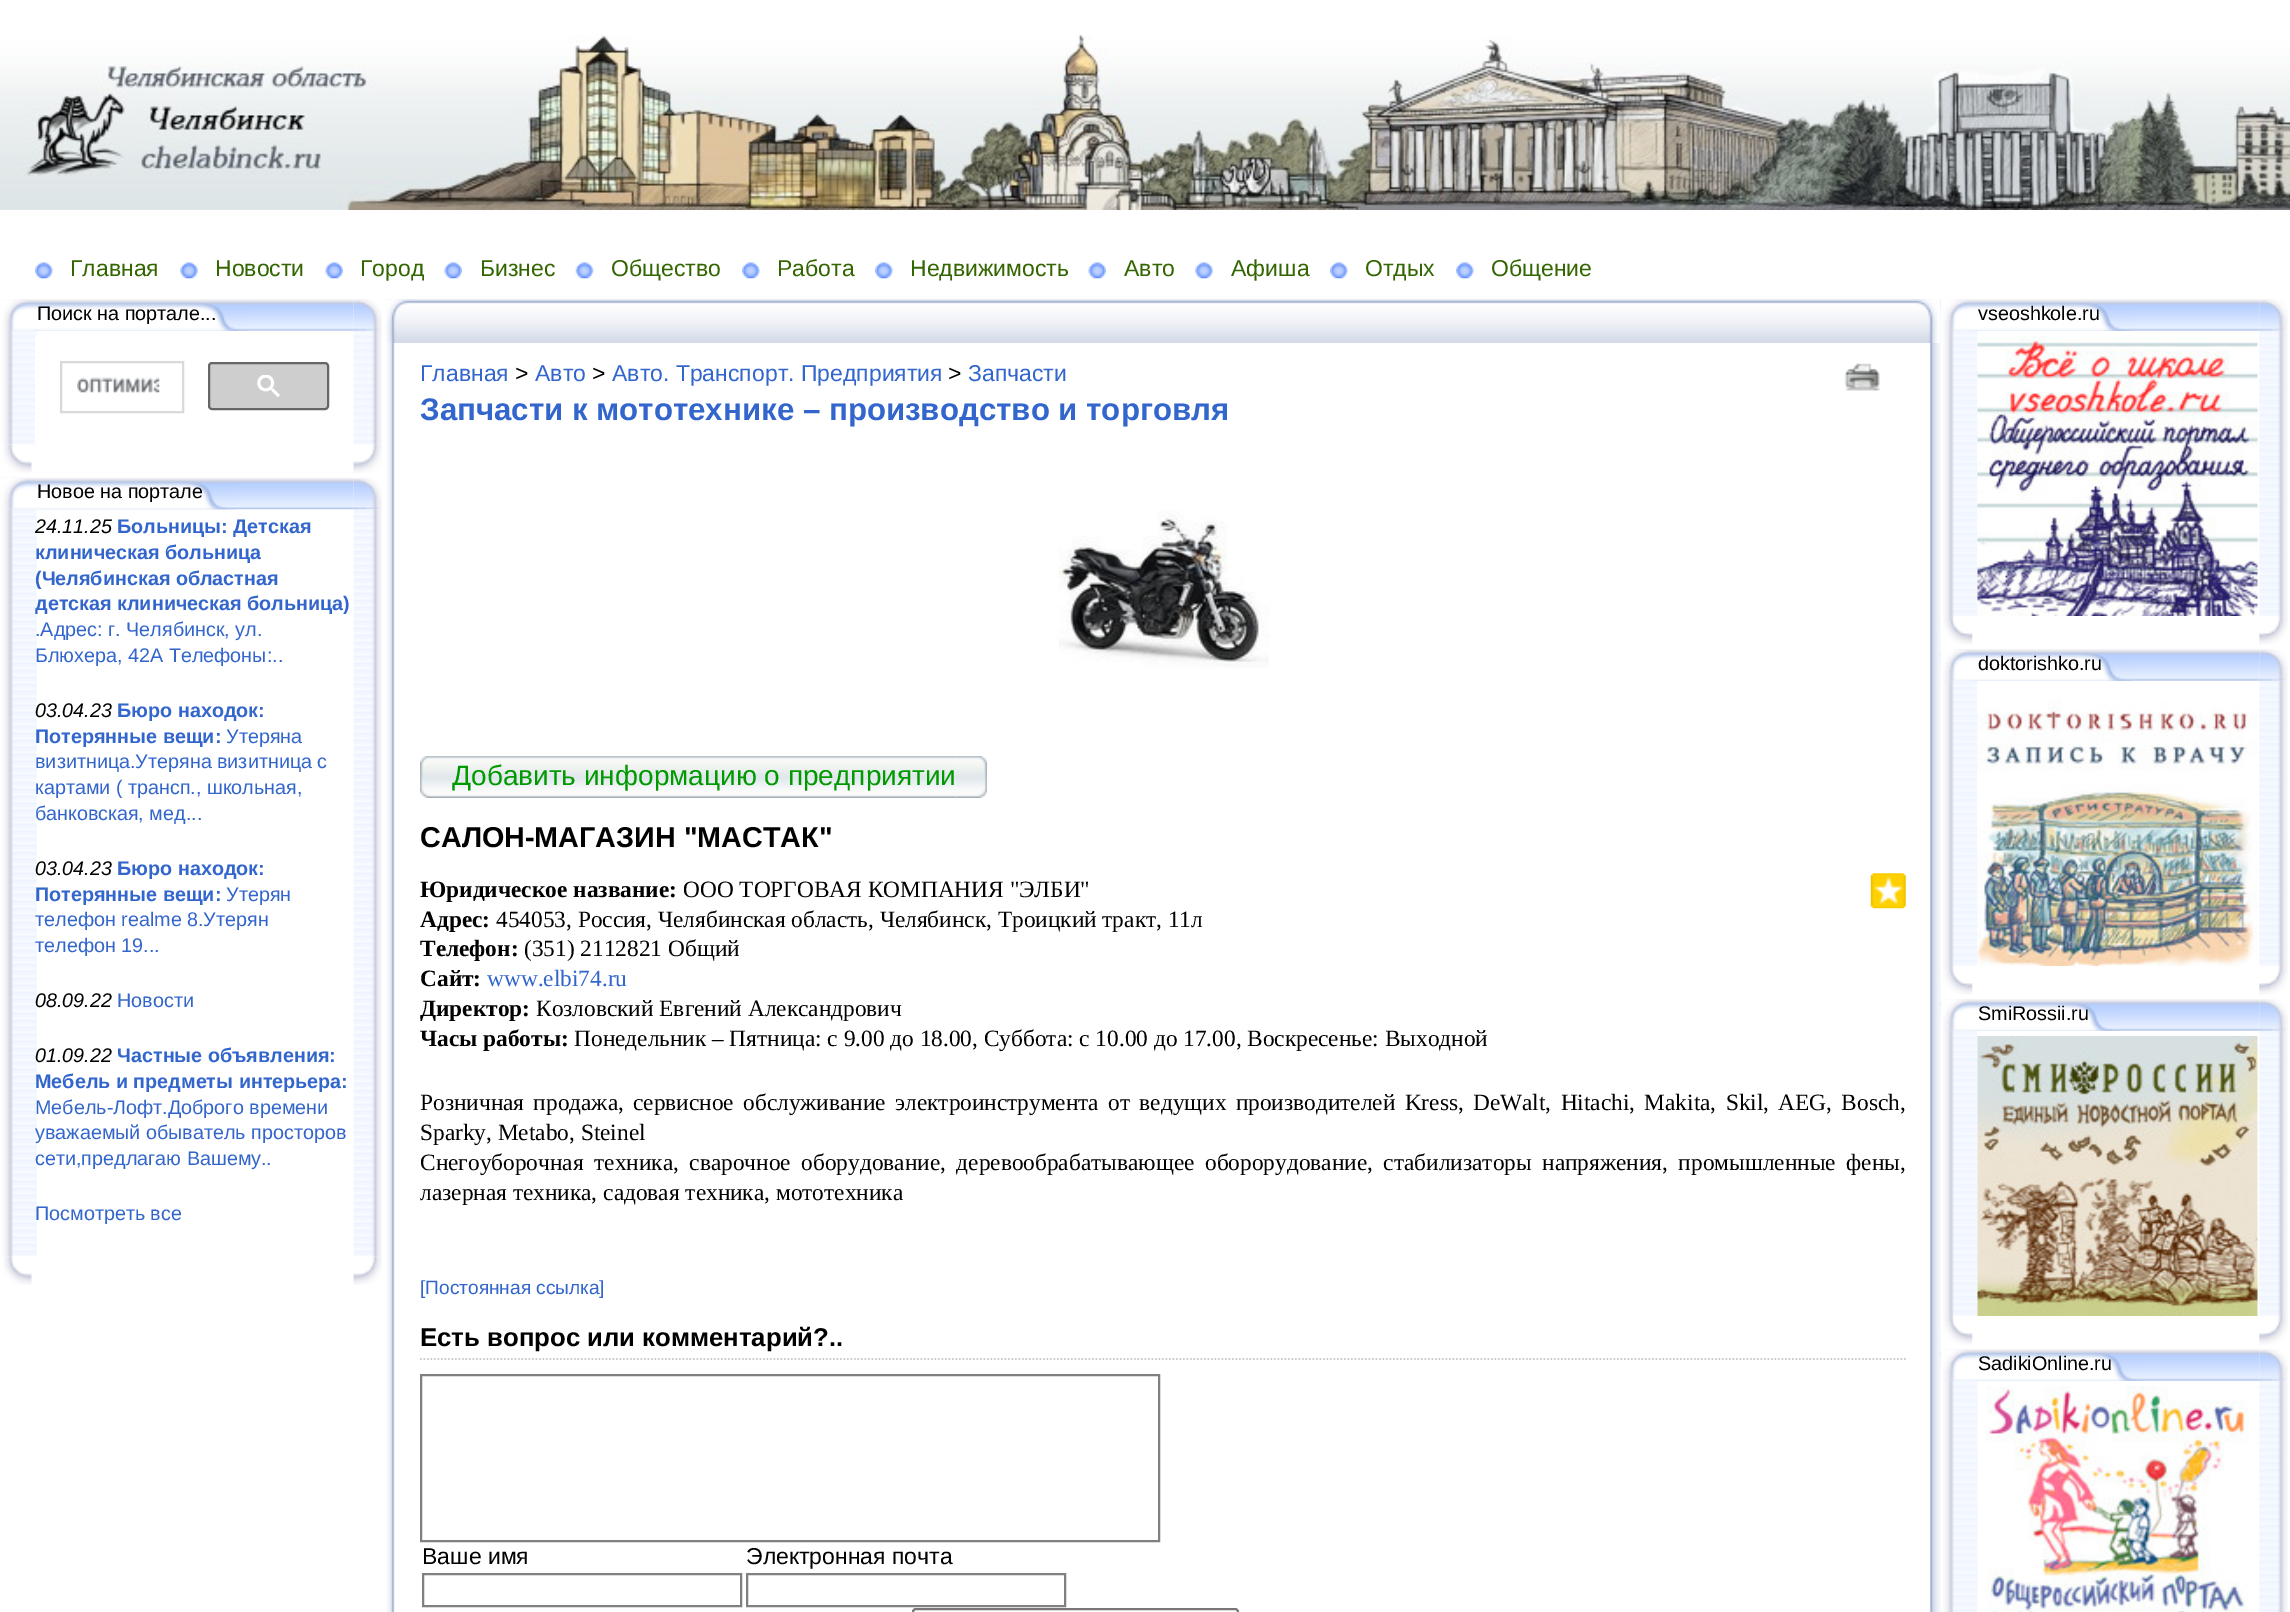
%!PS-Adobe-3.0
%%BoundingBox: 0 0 2290 1612
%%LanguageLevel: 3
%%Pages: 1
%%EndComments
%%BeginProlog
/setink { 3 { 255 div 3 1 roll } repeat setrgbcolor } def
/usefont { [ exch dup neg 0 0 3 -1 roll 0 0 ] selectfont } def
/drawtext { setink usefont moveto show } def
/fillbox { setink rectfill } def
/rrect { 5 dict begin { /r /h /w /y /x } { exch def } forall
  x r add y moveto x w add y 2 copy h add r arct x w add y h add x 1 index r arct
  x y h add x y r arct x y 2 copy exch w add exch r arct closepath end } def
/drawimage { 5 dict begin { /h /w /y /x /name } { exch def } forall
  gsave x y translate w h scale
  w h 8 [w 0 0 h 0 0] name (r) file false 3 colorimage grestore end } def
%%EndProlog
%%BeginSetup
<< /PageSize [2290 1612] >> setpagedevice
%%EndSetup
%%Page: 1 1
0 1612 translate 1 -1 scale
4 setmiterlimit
0 0 2290 1612 255 255 255 fillbox
(assets/img1.rgb) 0 35 2290 175 drawimage
(assets/img2.rgb) 35 262 18 17 drawimage
(Главная) 70 276 /LiberationSans-Regular 23 51 102 0 drawtext
(assets/img3.rgb) 180 262 18 17 drawimage
(Новости) 215 276 /LiberationSans-Regular 23 51 102 0 drawtext
(assets/img4.rgb) 325 262 18 17 drawimage
(Город) 360 276 /LiberationSans-Regular 23 51 102 0 drawtext
(assets/img5.rgb) 444 262 18 17 drawimage
(Бизнес) 480 276 /LiberationSans-Regular 23 51 102 0 drawtext
(assets/img6.rgb) 575 262 19 17 drawimage
(Общество) 611 276 /LiberationSans-Regular 23 51 102 0 drawtext
(assets/img7.rgb) 742 262 18 17 drawimage
(Работа) 777 276 /LiberationSans-Regular 23 51 102 0 drawtext
(assets/img7.rgb) 875 262 18 17 drawimage
(Недвижимость) 910 276 /LiberationSans-Regular 23 51 102 0 drawtext
(assets/img5.rgb) 1088 262 18 17 drawimage
(Авто) 1124 276 /LiberationSans-Regular 23 51 102 0 drawtext
(assets/img8.rgb) 1195 262 18 17 drawimage
(Афиша) 1231 276 /LiberationSans-Regular 23 51 102 0 drawtext
(assets/img7.rgb) 1330 262 18 17 drawimage
(Отдых) 1365 276 /LiberationSans-Regular 23 51 102 0 drawtext
(assets/img7.rgb) 1456 262 18 17 drawimage
(Общение) 1491 276 /LiberationSans-Regular 23 51 102 0 drawtext
(assets/img9.rgb) 0 299 354 32 drawimage
(assets/img10.rgb) 0 303 247 28 drawimage
(assets/img13.rgb) 0 330 37 115 drawimage
(assets/img11.rgb) 0 299 31 32 drawimage
(Поиск на портале...) 37 320 /LiberationSans-Regular 19.75 0 0 0 drawtext
(assets/img16.rgb) 353 330 29 115 drawimage
(assets/img12.rgb) 353 299 29 32 drawimage
35 336 2 109 255 255 255 fillbox
217 217 217 setink
2 setlinewidth
61 362 122 50 rectstroke
(assets/img14.rgb) 77 377 83 16 drawimage
206 206 206 setink
209 363 119 46 3 rrect gsave fill grestore
102 102 102 setink
stroke
(assets/img15.rgb) 257 375 23 22 drawimage
(assets/img17.rgb) 3 444 29 29 drawimage
(assets/img18.rgb) 353 444 29 29 drawimage
(assets/img19.rgb) 0 477 354 33 drawimage
(assets/img20.rgb) 0 481 235 29 drawimage
(assets/img21.rgb) 0 478 26 31 drawimage
(Новое на портале) 37 498 /LiberationSans-Regular 19.75 0 0 0 drawtext
(assets/img24.rgb) 353 509 29 748 drawimage
(assets/img22.rgb) 353 478 29 32 drawimage
(assets/img23.rgb) 0 509 37 748 drawimage
(24.11.25) 35 533 /LiberationSans-Italic 19.75 0 0 0 drawtext
(Больницы: Детская) 117 533 /LiberationSans-Bold 19.75 51 102 204 drawtext
(клиническая больница) 35 559 /LiberationSans-Bold 19.75 51 102 204 drawtext
(\(Челябинская областная) 35 585 /LiberationSans-Bold 19.75 51 102 204 drawtext
(детская клиническая больница\)) 35 610 /LiberationSans-Bold 19.75 51 102 204 drawtext
(.Адрес: г. Челябинск, ул.) 35 636 /LiberationSans-Regular 19.75 51 102 204 drawtext
(Блюхера, 42А Телефоны:..) 35 662 /LiberationSans-Regular 19.75 51 102 204 drawtext
(03.04.23) 35 717 /LiberationSans-Italic 19.75 0 0 0 drawtext
(Бюро находок:) 117 717 /LiberationSans-Bold 19.75 51 102 204 drawtext
(Потерянные вещи:) 35 743 /LiberationSans-Bold 19.75 51 102 204 drawtext
(Утеряна) 226 743 /LiberationSans-Regular 19.75 51 102 204 drawtext
(визитница.Утеряна визитница с) 35 768 /LiberationSans-Regular 19.75 51 102 204 drawtext
(картами \( трансп., школьная,) 35 794 /LiberationSans-Regular 19.75 51 102 204 drawtext
(банковская, мед...) 35 820 /LiberationSans-Regular 19.75 51 102 204 drawtext
(03.04.23) 35 875 /LiberationSans-Italic 19.75 0 0 0 drawtext
(Бюро находок:) 117 875 /LiberationSans-Bold 19.75 51 102 204 drawtext
(Потерянные вещи:) 35 901 /LiberationSans-Bold 19.75 51 102 204 drawtext
(Утерян) 226 901 /LiberationSans-Regular 19.75 51 102 204 drawtext
(телефон realme 8.Утерян) 35 926 /LiberationSans-Regular 19.75 51 102 204 drawtext
(телефон 19...) 35 952 /LiberationSans-Regular 19.75 51 102 204 drawtext
(08.09.22) 35 1007 /LiberationSans-Italic 19.75 0 0 0 drawtext
(Новости) 117 1007 /LiberationSans-Regular 19.75 51 102 204 drawtext
(01.09.22) 35 1062 /LiberationSans-Italic 19.75 0 0 0 drawtext
(Частные объявления:) 117 1062 /LiberationSans-Bold 19.75 51 102 204 drawtext
(Мебель и предметы интерьера:) 35 1088 /LiberationSans-Bold 19.75 51 102 204 drawtext
(Мебель-Лофт.Доброго времени) 35 1114 /LiberationSans-Regular 19.75 51 102 204 drawtext
(уважаемый обыватель просторов) 35 1139 /LiberationSans-Regular 19.75 51 102 204 drawtext
(сети,предлагаю Вашему..) 35 1165 /LiberationSans-Regular 19.75 51 102 204 drawtext
(Посмотреть все) 35 1220 /LiberationSans-Regular 19.75 51 102 204 drawtext
(assets/img25.rgb) 3 1256 29 29 drawimage
(assets/img26.rgb) 353 1256 29 29 drawimage
(assets/img27.rgb) 385 299 1556 44 drawimage
(assets/img28.rgb) 1911 299 30 44 drawimage
(assets/img29.rgb) 385 299 28 44 drawimage
(assets/img30.rgb) 386 343 9 1269 drawimage
(assets/img31.rgb) 1929 343 12 1269 drawimage
(Главная) 420 381 /LiberationSans-Regular 23 51 102 204 drawtext
(>) 515 381 /LiberationSans-Regular 23 0 0 0 drawtext
(Авто) 535 381 /LiberationSans-Regular 23 51 102 204 drawtext
(>) 592 381 /LiberationSans-Regular 23 0 0 0 drawtext
(Авто. Транспорт. Предприятия) 612 381 /LiberationSans-Regular 23 51 102 204 drawtext
(>) 948 381 /LiberationSans-Regular 23 0 0 0 drawtext
(Запчасти) 968 381 /LiberationSans-Regular 23 51 102 204 drawtext
(Запчасти к мототехнике – производство и торговля) 420 420 /LiberationSans-Bold 31.25 51 102 204 drawtext
(assets/img32.rgb) 1058 510 211 158 drawimage
(assets/img33.rgb) 955 756 32 42 drawimage
(assets/img34.rgb) 420 756 536 42 drawimage
(Добавить информацию о предприятии) 452 785 /LiberationSans-Regular 28 0 153 0 drawtext
(assets/img35.rgb) 1844 363 36 28 drawimage
(САЛОН-МАГАЗИН "МАСТАК") 420 847 /LiberationSans-Bold 28.75 0 0 0 drawtext
(Юридическое название:) 420 897 /LiberationSerif-Bold 23.33 0 0 0 drawtext
(ООО ТОРГОВАЯ КОМПАНИЯ "ЭЛБИ") 683 897 /LiberationSerif-Regular 23.33 0 0 0 drawtext
(Адрес:) 420 927 /LiberationSerif-Bold 23.33 0 0 0 drawtext
(454053, Россия, Челябинская область, Челябинск, Троицкий тракт, 11л) 496 927 /LiberationSerif-Regular 23.33 0 0 0 drawtext
(Телефон:) 420 956 /LiberationSerif-Bold 23.33 0 0 0 drawtext
(\(351\) 2112821 Общий) 524 956 /LiberationSerif-Regular 23.33 0 0 0 drawtext
(Сайт:) 420 986 /LiberationSerif-Bold 23.33 0 0 0 drawtext
(www.elbi74.ru) 487 986 /LiberationSerif-Regular 23.33 51 102 204 drawtext
(Директор:) 420 1016 /LiberationSerif-Bold 23.33 0 0 0 drawtext
(Козловский Евгений Александрович) 536 1016 /LiberationSerif-Regular 23.33 0 0 0 drawtext
(Часы работы:) 420 1046 /LiberationSerif-Bold 23.33 0 0 0 drawtext
(Понедельник – Пятница: с 9.00 до 18.00, Суббота: с 10.00 до 17.00, Воскресенье: Выходной) 574 1046 /LiberationSerif-Regular 23.33 0 0 0 drawtext
(assets/img36.rgb) 1870 873 36 36 drawimage
420 1110 moveto 3.5 0 32 (Розничная продажа, сервисное обслуживание электроинструмента от ведущих производителей Kress, DeWalt, Hitachi, Makita, Skil, AEG, Bosch,) widthshow
(Sparky, Metabo, Steinel) 420 1140 /LiberationSerif-Regular 23.33 0 0 0 drawtext
420 1170 moveto 4.75 0 32 (Снегоуборочная техника, сварочное оборудование, деревообрабатывающее оборорудование, стабилизаторы напряжения, промышленные фены,) widthshow
(лазерная техника, садовая техника, мототехника) 420 1200 /LiberationSerif-Regular 23.33 0 0 0 drawtext
([Постоянная ссылка]) 420 1294 /LiberationSans-Regular 19.1 51 102 204 drawtext
205 205 205 setink
1.8 setlinewidth
[1.75 1.75] 0 setdash
420 1359 moveto 1906 1359 lineto stroke
(Есть вопрос или комментарий?..) 420 1346 /LiberationSans-Bold 25.75 0 0 0 drawtext
128 128 128 setink
2 setlinewidth
[] 0 setdash
421 1375 738 166 rectstroke
(Ваше имя) 422 1564 /LiberationSans-Regular 23 0 0 0 drawtext
(Электронная почта) 746 1564 /LiberationSans-Regular 23 0 0 0 drawtext
128 128 128 setink
423 1574 318 32 rectstroke
747 1574 318 32 rectstroke
118 118 118 setink
913 1609 325 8 3 rrect stroke
(assets/img37.rgb) 1940 299 320 32 drawimage
(assets/img38.rgb) 1940 302 192 29 drawimage
(assets/img41.rgb) 1941 330 37 286 drawimage
(assets/img39.rgb) 1940 299 32 32 drawimage
(vseoshkole.ru) 1978 320 /LiberationSans-Regular 19.75 0 0 0 drawtext
(assets/img43.rgb) 2259 330 29 286 drawimage
(assets/img40.rgb) 2259 299 29 32 drawimage
(assets/img42.rgb) 1977 336 281 280 drawimage
(assets/img44.rgb) 1943 616 30 29 drawimage
(assets/img45.rgb) 2259 616 29 29 drawimage
(assets/img46.rgb) 1940 649 320 32 drawimage
(assets/img47.rgb) 1940 651 193 30 drawimage
(assets/img41.rgb) 1941 680 37 286 drawimage
(assets/img48.rgb) 1940 649 32 32 drawimage
(doktorishko.ru) 1978 670 /LiberationSans-Regular 19.75 0 0 0 drawtext
(assets/img50.rgb) 2259 680 29 286 drawimage
(assets/img40.rgb) 2259 649 29 32 drawimage
(assets/img49.rgb) 1977 687 281 279 drawimage
(assets/img44.rgb) 1943 966 30 29 drawimage
(assets/img45.rgb) 2259 966 29 29 drawimage
(assets/img51.rgb) 1940 999 320 32 drawimage
(assets/img52.rgb) 1940 1001 179 30 drawimage
(assets/img41.rgb) 1941 1030 37 286 drawimage
(assets/img48.rgb) 1940 999 32 32 drawimage
(SmiRossii.ru) 1978 1020 /LiberationSans-Regular 19.75 0 0 0 drawtext
(assets/img54.rgb) 2259 1030 29 286 drawimage
(assets/img40.rgb) 2259 999 29 32 drawimage
(assets/img53.rgb) 1977 1036 281 280 drawimage
(assets/img44.rgb) 1943 1316 30 29 drawimage
(assets/img45.rgb) 2259 1316 29 29 drawimage
(assets/img55.rgb) 1940 1349 320 32 drawimage
(assets/img56.rgb) 1940 1351 204 30 drawimage
(assets/img59.rgb) 1941 1380 37 232 drawimage
(assets/img57.rgb) 1940 1349 32 32 drawimage
(SadikiOnline.ru) 1978 1370 /LiberationSans-Regular 19.75 0 0 0 drawtext
(assets/img61.rgb) 2259 1380 29 232 drawimage
(assets/img58.rgb) 2259 1349 29 32 drawimage
(assets/img60.rgb) 1986 1386 263 226 drawimage
showpage
%%EOF
